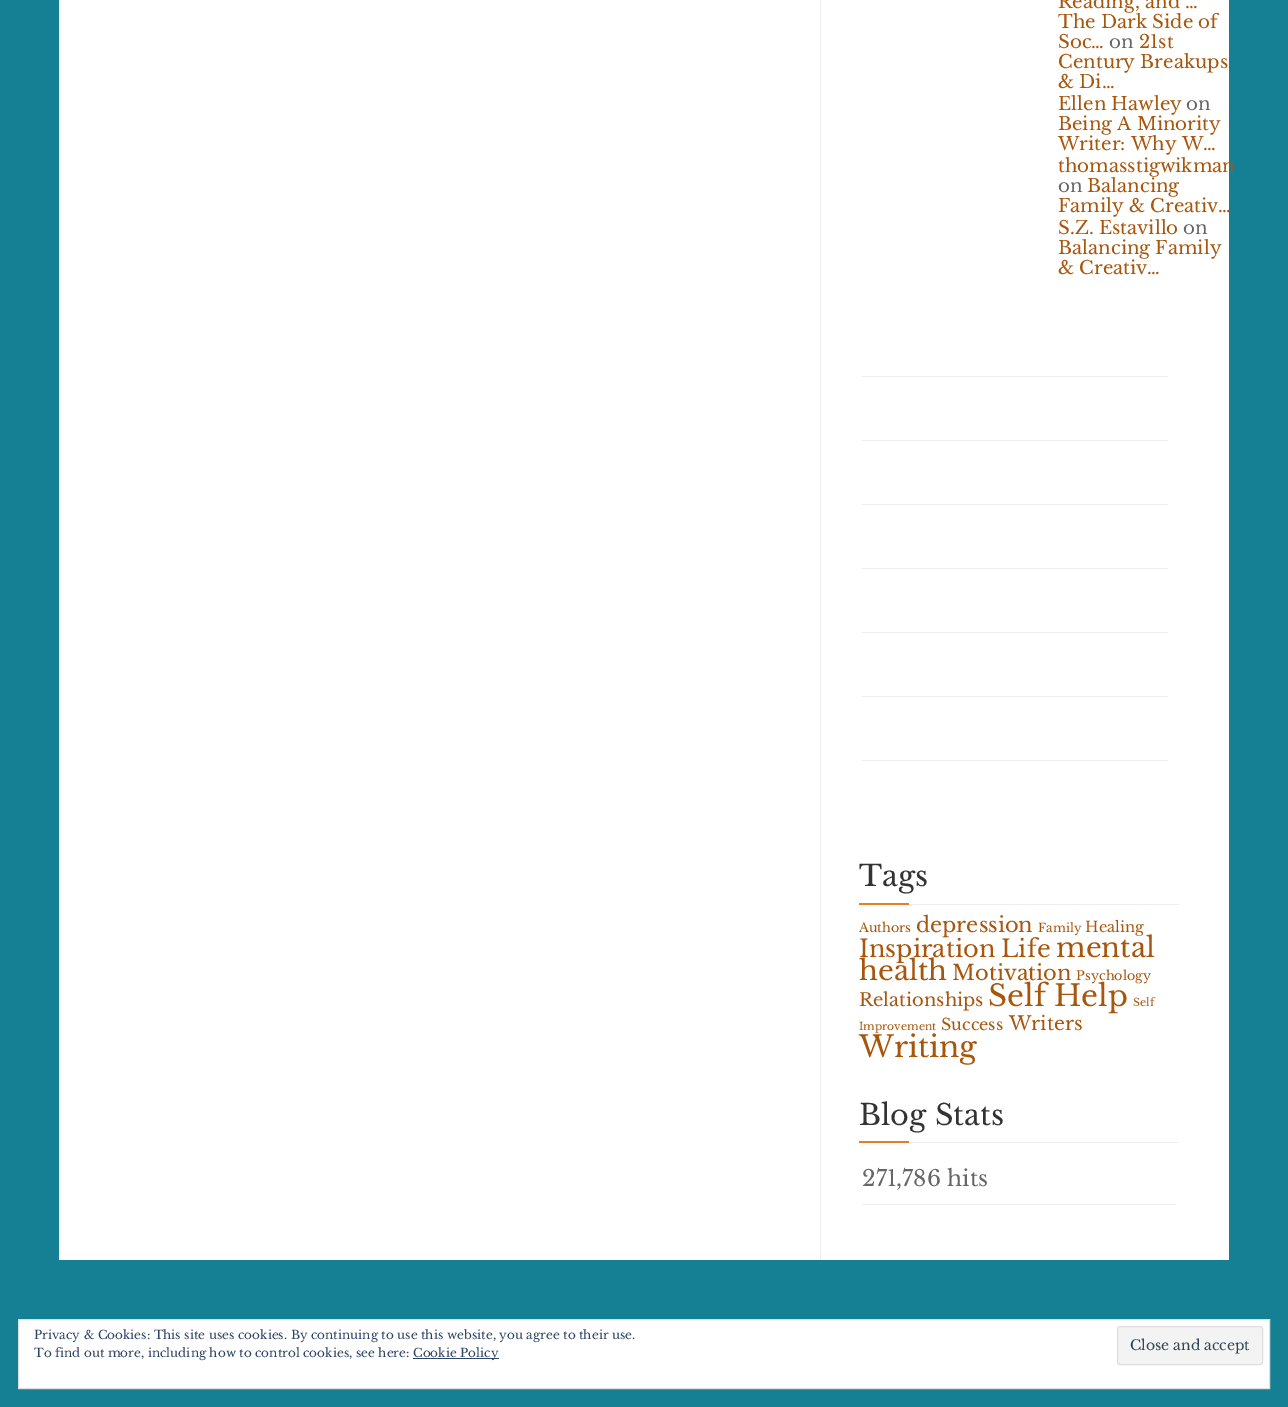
%!PS-Adobe-3.0
%%BoundingBox: 0 0 1288 1407
%%LanguageLevel: 3
%%Pages: 1
%%EndComments
%%BeginProlog
/setink { 3 { 255 div 3 1 roll } repeat setrgbcolor } def
/usefont { [ exch dup neg 0 0 3 -1 roll 0 0 ] selectfont } def
/drawtext { setink usefont moveto show } def
/fillbox { setink rectfill } def
/rrect { 5 dict begin { /r /h /w /y /x } { exch def } forall
  x r add y moveto x w add y 2 copy h add r arct x w add y h add x 1 index r arct
  x y h add x y r arct x y 2 copy exch w add exch r arct closepath end } def
%%EndProlog
%%BeginSetup
<< /PageSize [1288 1407] >> setpagedevice
%%EndSetup
%%Page: 1 1
0 1407 translate 1 -1 scale
4 setmiterlimit
0 0 1288 1407 21 128 147 fillbox
59 0 1170 1260 255 255 255 fillbox
820 0 1 1260 238 238 238 fillbox
(Reading, and …) 1058 8 /LibreBaskerville-Regular 18.25 169 86 13 drawtext
(The Dark Side of) 1058 28 /LibreBaskerville-Regular 18.25 169 86 13 drawtext
(Soc…) 1058 48 /LibreBaskerville-Regular 18.25 169 86 13 drawtext
(on) 1109 48 /LibreBaskerville-Regular 18.25 102 102 102 drawtext
(21st) 1139 48 /LibreBaskerville-Regular 18.25 169 86 13 drawtext
(Century Breakups) 1058 68 /LibreBaskerville-Regular 18.25 169 86 13 drawtext
(& Di…) 1058 88 /LibreBaskerville-Regular 18.25 169 86 13 drawtext
(Ellen Hawley) 1058 110 /LibreBaskerville-Regular 18.25 169 86 13 drawtext
(on) 1186 110 /LibreBaskerville-Regular 18.25 102 102 102 drawtext
(Being A Minority) 1058 130 /LibreBaskerville-Regular 18.25 169 86 13 drawtext
(Writer: Why W…) 1058 150 /LibreBaskerville-Regular 18.25 169 86 13 drawtext
(thomasstigwikman) 1058 172 /LibreBaskerville-Regular 18.25 169 86 13 drawtext
(on) 1058 192 /LibreBaskerville-Regular 18.25 102 102 102 drawtext
(Balancing) 1087 192 /LibreBaskerville-Regular 18.25 169 86 13 drawtext
(Family & Creativ…) 1058 212 /LibreBaskerville-Regular 18.25 169 86 13 drawtext
(S.Z. Estavillo) 1058 234 /LibreBaskerville-Regular 18.25 169 86 13 drawtext
(on) 1183 234 /LibreBaskerville-Regular 18.25 102 102 102 drawtext
(Balancing Family) 1058 254 /LibreBaskerville-Regular 18.25 169 86 13 drawtext
(& Creativ…) 1058 274 /LibreBaskerville-Regular 18.25 169 86 13 drawtext
862 376 306 1 238 238 238 fillbox
862 440 306 1 238 238 238 fillbox
862 504 306 1 238 238 238 fillbox
862 568 306 1 238 238 238 fillbox
862 632 306 1 238 238 238 fillbox
862 696 306 1 238 238 238 fillbox
862 760 306 1 238 238 238 fillbox
909 904 270 1 238 238 238 fillbox
(Tags) 859 886 /LibreBaskerville-Regular 28.75 51 51 51 drawtext
859 903 50 2 231 126 35 fillbox
(Authors) 859 932 /LibreBaskerville-Regular 12.75 169 86 13 drawtext
(depression) 916 932 /LibreBaskerville-Regular 21 169 86 13 drawtext
(Family) 1038 932 /LibreBaskerville-Regular 12 169 86 13 drawtext
(Healing) 1085 932 /LibreBaskerville-Regular 14.75 169 86 13 drawtext
(Inspiration) 859 957 /LibreBaskerville-Regular 24 169 86 13 drawtext
(Life) 1001 957 /LibreBaskerville-Regular 24 169 86 13 drawtext
(mental) 1056 957 /LibreBaskerville-Regular 27.5 169 86 13 drawtext
(health) 859 980 /LibreBaskerville-Regular 27.5 169 86 13 drawtext
(Motivation) 952 980 /LibreBaskerville-Regular 21 169 86 13 drawtext
(Psychology) 1076 980 /LibreBaskerville-Regular 12.75 169 86 13 drawtext
(Relationships) 859 1006 /LibreBaskerville-Regular 18 169 86 13 drawtext
(Self Help) 988 1006 /LibreBaskerville-Regular 29.5 169 86 13 drawtext
(Self) 1133 1006 /LibreBaskerville-Regular 10.75 169 86 13 drawtext
(Improvement) 859 1030 /LibreBaskerville-Regular 10.75 169 86 13 drawtext
(Success) 941 1030 /LibreBaskerville-Regular 16 169 86 13 drawtext
(Writers) 1009 1030 /LibreBaskerville-Regular 19 169 86 13 drawtext
(Writing) 859 1057 /LibreBaskerville-Regular 29.5 169 86 13 drawtext
909 1142 270 1 238 238 238 fillbox
(Blog Stats) 859 1125 /LibreBaskerville-Regular 28.75 51 51 51 drawtext
859 1141 50 2 231 126 35 fillbox
862 1204 314 1 238 238 238 fillbox
(271,786 hits) 862 1186 /LibreBaskerville-Regular 22 102 102 102 drawtext
255 255 255 setink
18.5 1319.5 moveto 1269.5 1319.5 lineto 1269.5 1388.5 lineto 18.5 1388.5 lineto closepath gsave fill grestore
222 222 222 setink
stroke
(Privacy & Cookies: This site uses cookies. By continuing to use this website, you agree to their use.) 34 1339 /LibreBaskerville-Regular 12 46 68 103 drawtext
(To find out more, including how to control cookies, see here:) 34 1357 /LibreBaskerville-Regular 12 46 68 103 drawtext
413 1358 86 1 46 68 103 fillbox
(Cookie Policy) 413 1357 /LibreBaskerville-Regular 12 46 68 103 drawtext
243 243 243 setink
1117.5 1326.5 145 38 2.5 rrect gsave fill grestore
222 222 222 setink
stroke
(Close and accept) 1130 1350 /LibreBaskerville-Regular 14 46 68 83 drawtext
showpage
%%EOF
